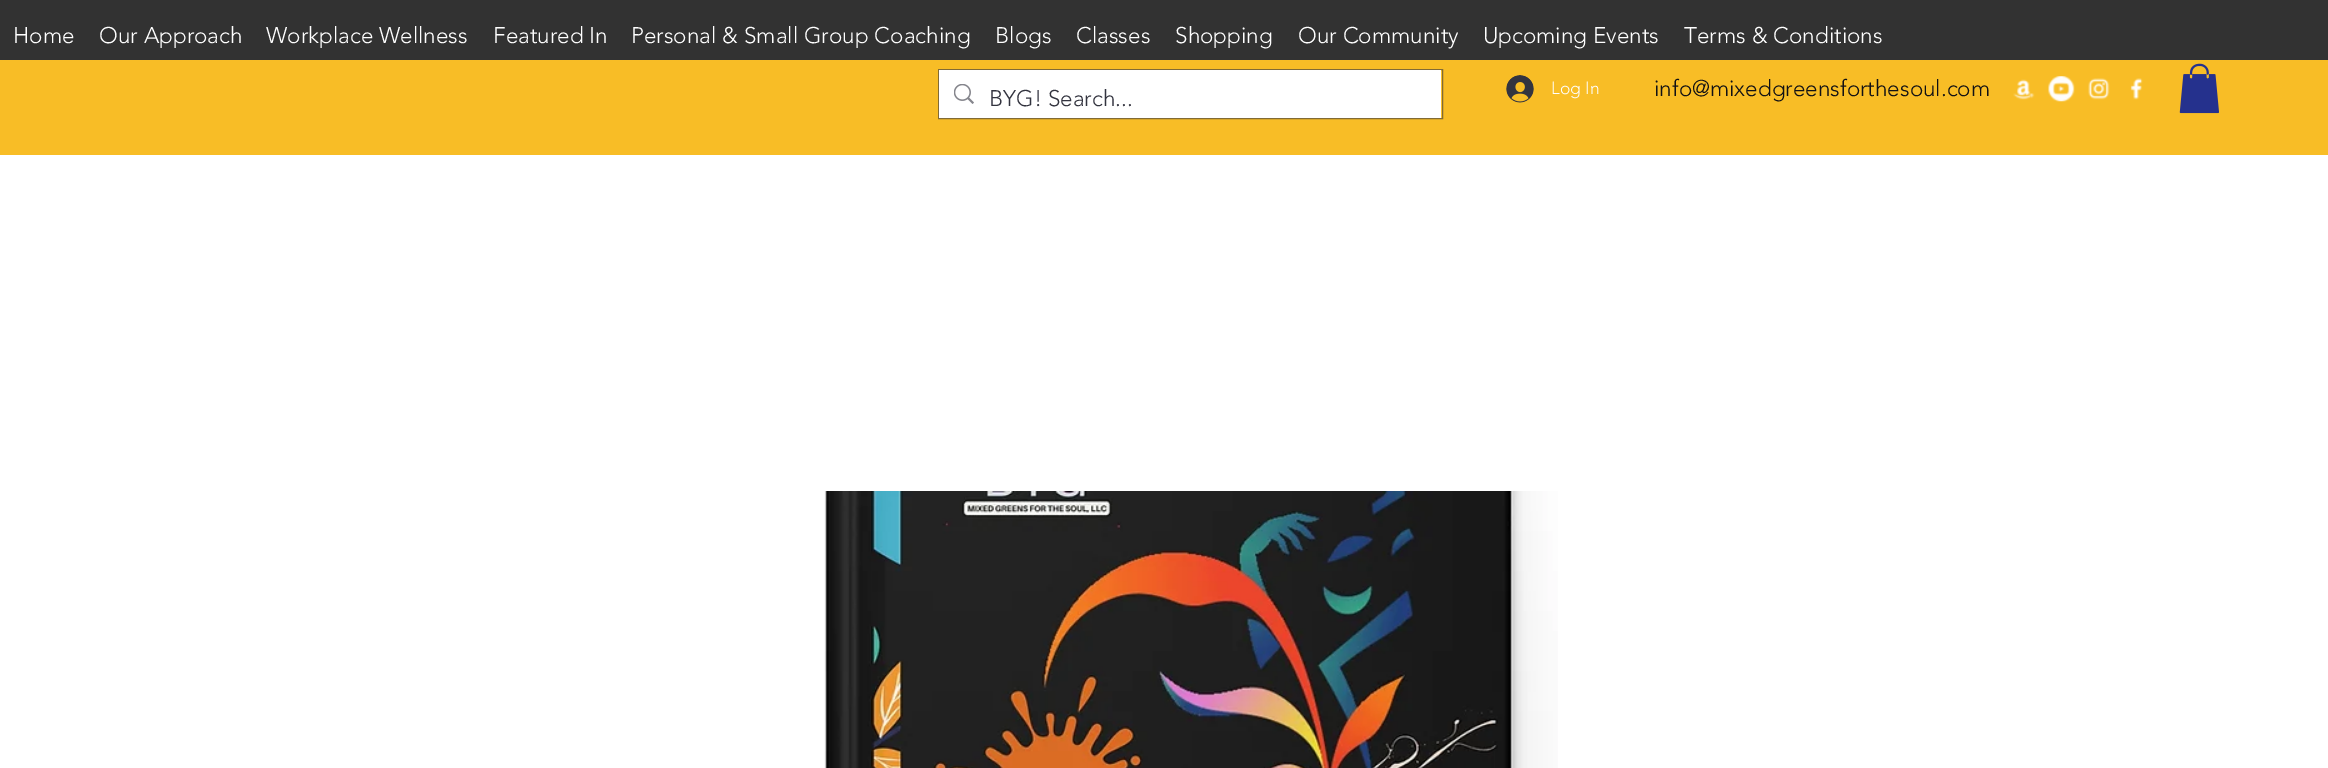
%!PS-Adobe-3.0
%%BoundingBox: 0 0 2328 768
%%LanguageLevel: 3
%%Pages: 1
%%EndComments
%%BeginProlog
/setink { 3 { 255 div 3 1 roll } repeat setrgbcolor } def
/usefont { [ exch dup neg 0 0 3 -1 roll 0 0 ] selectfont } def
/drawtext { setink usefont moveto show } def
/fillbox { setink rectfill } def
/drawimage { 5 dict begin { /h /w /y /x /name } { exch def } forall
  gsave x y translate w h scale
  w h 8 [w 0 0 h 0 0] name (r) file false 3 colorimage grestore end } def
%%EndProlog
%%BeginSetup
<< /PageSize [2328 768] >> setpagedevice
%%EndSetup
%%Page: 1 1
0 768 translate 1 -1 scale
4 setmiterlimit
0 0 2328 768 255 255 255 fillbox
0 0 2328 60 50 50 50 fillbox
(Home) 13 43 /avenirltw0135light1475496-Light 22.5 255 255 255 drawtext
(Our Approach) 99 43 /avenirltw0135light1475496-Light 22.5 255 255 255 drawtext
(Workplace Wellness) 266 43 /avenirltw0135light1475496-Light 22.5 255 255 255 drawtext
(Featured In) 493 43 /avenirltw0135light1475496-Light 22.5 255 255 255 drawtext
(Personal & Small Group Coaching) 631 43 /avenirltw0135light1475496-Light 22.5 255 255 255 drawtext
(Blogs) 995 43 /avenirltw0135light1475496-Light 22.5 255 255 255 drawtext
(Classes) 1076 43 /avenirltw0135light1475496-Light 22.5 255 255 255 drawtext
(Shopping) 1175 43 /avenirltw0135light1475496-Light 22.5 255 255 255 drawtext
(Our Community) 1298 43 /avenirltw0135light1475496-Light 22.5 255 255 255 drawtext
(Upcoming Events) 1483 43 /avenirltw0135light1475496-Light 22.5 255 255 255 drawtext
(Terms & Conditions) 1684 43 /avenirltw0135light1475496-Light 22.5 255 255 255 drawtext
0 60 2328 95 248 189 38 fillbox
130 107 53 setink
938.5 69.5 504 49 rectstroke
939 70 502 48 255 255 255 fillbox
(assets/img1.rgb) 954 84 20 20 drawimage
(BYG! Search...) 989 106 /avenirltw0135light1475496-Light 22.5 51 52 63 drawtext
(assets/img2.rgb) 1506 75 28 28 drawimage
(Log In) 1551 94 /avenirltw0135light1475496-Light 17.5 255 255 255 drawtext
(info@mixedgreensforthesoul.com) 1654 96 /avenirltw0135light1475496-Light 22.5 17 17 21 drawtext
(assets/img3.rgb) 2013 79 22 21 drawimage
(assets/img4.rgb) 2048 76 27 26 drawimage
(assets/img5.rgb) 2088 78 22 22 drawimage
(assets/img6.rgb) 2130 78 13 22 drawimage
(assets/img7.rgb) 2179 63 40 51 drawimage
(assets/img8.rgb) 824 491 734 277 drawimage
showpage
%%EOF
